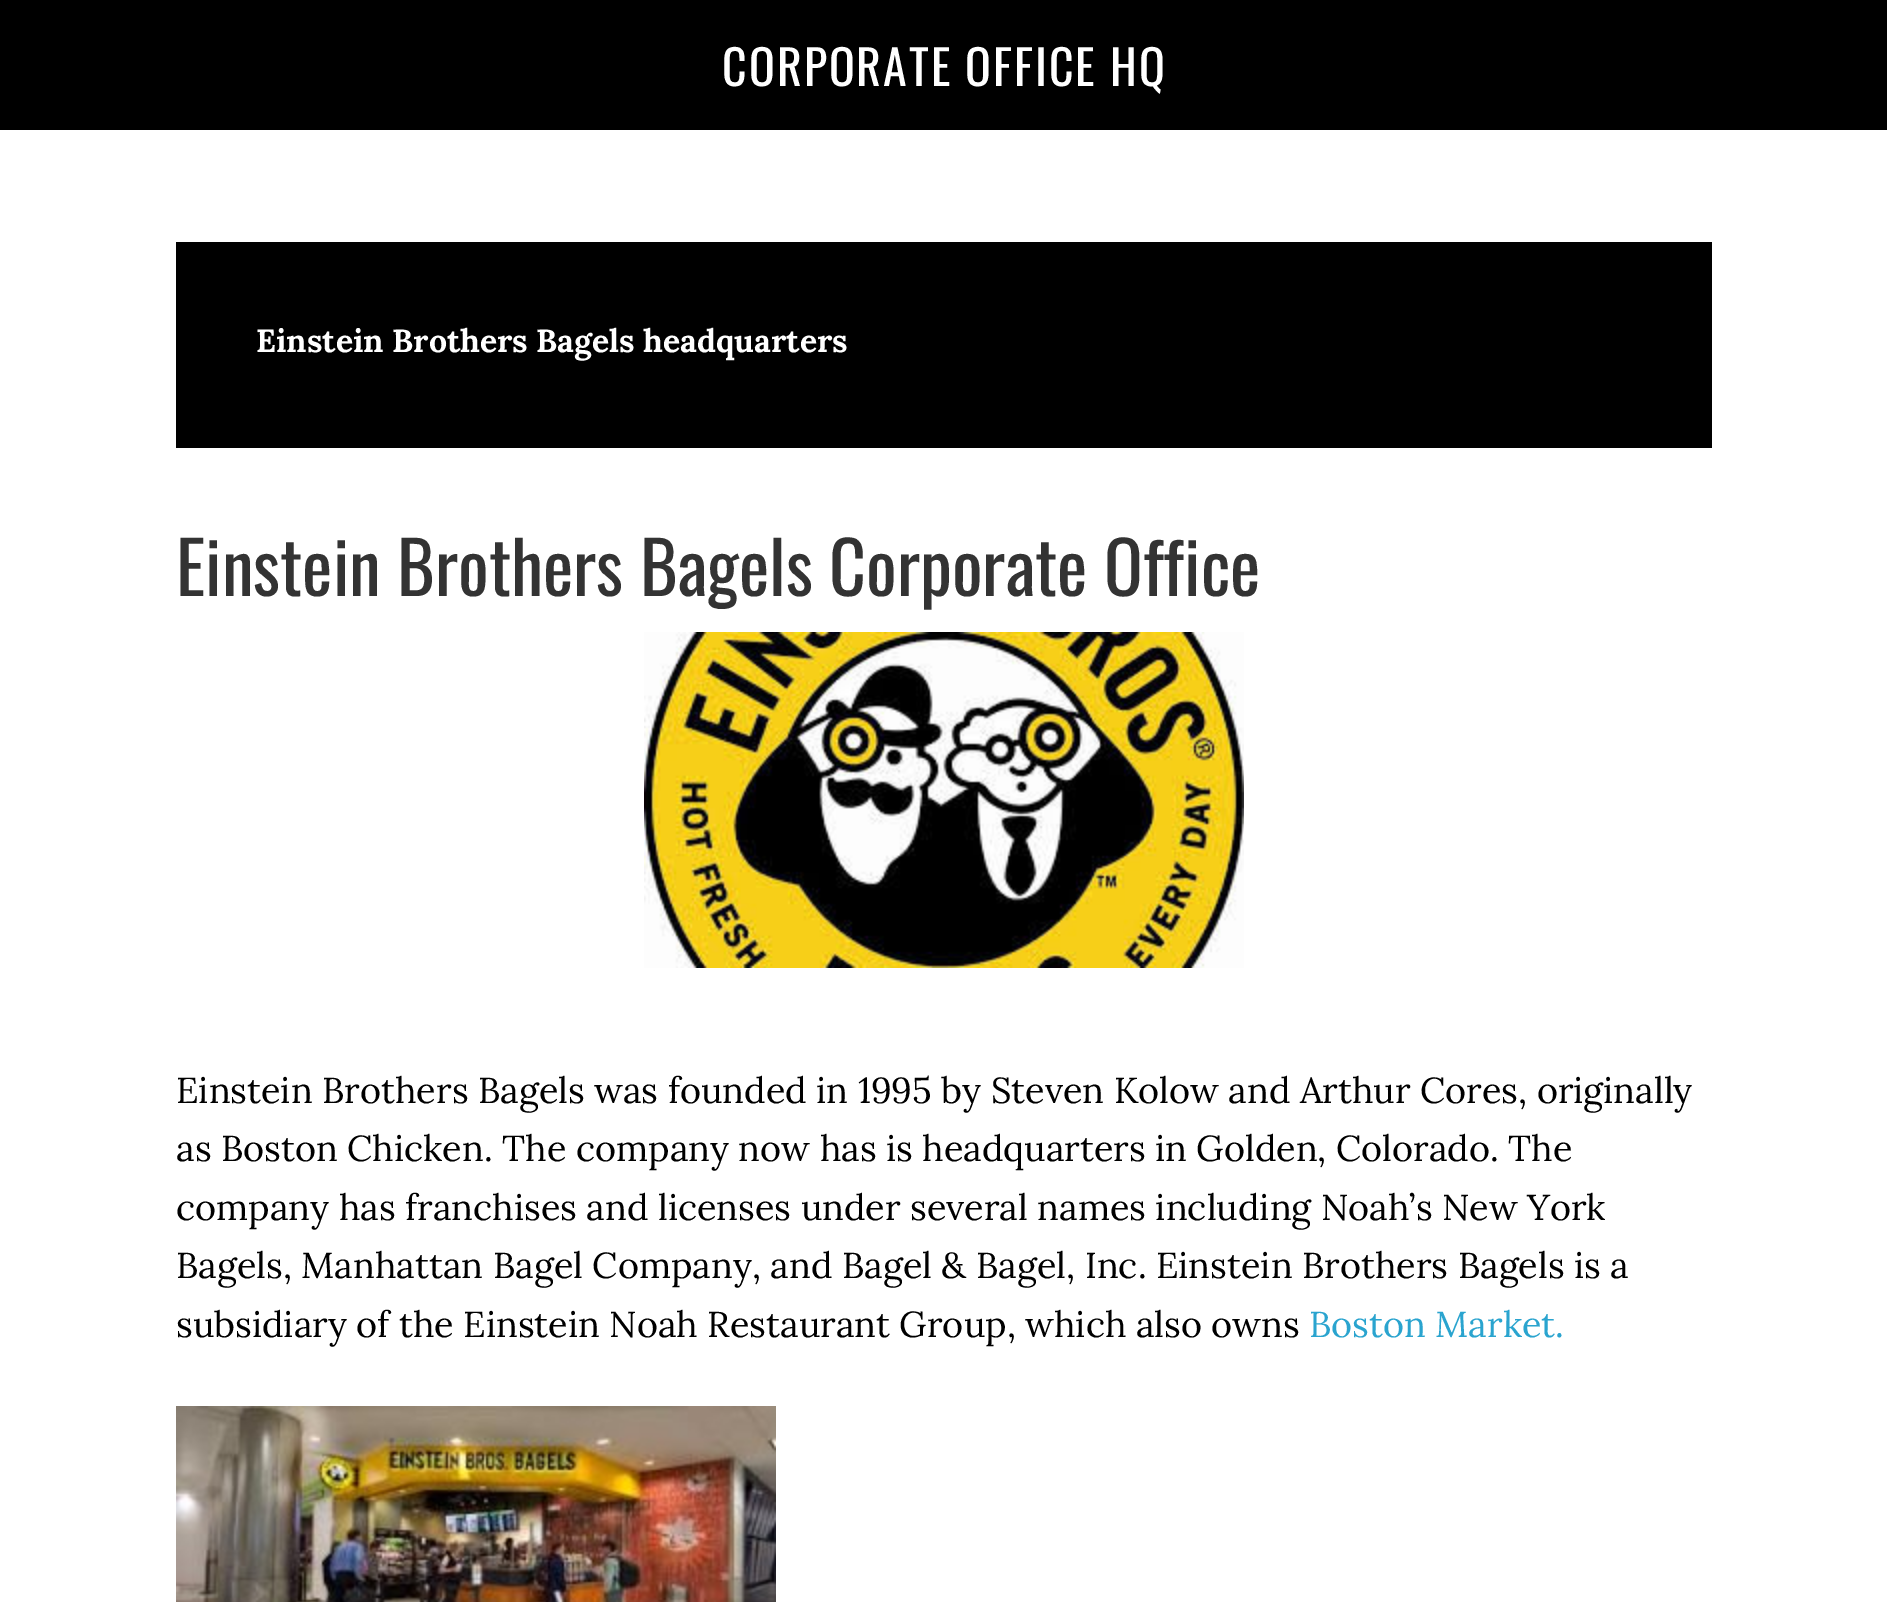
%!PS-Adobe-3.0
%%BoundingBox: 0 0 1887 1602
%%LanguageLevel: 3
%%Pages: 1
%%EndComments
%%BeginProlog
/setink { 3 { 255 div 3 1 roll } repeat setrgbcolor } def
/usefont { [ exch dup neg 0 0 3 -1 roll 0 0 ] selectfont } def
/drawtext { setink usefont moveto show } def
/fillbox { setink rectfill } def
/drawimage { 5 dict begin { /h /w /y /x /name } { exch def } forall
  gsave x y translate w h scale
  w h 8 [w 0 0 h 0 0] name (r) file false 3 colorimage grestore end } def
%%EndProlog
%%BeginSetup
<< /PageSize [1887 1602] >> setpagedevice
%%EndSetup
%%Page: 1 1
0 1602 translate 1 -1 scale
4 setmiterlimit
0 0 1887 1602 255 255 255 fillbox
0 0 1887 130 0 0 0 fillbox
/Oswald-Regular 48 usefont
255 255 255 setink
722 86 moveto 2 0 (CORPORATE OFFICE HQ) ashow
176 242 1536 206 0 0 0 fillbox
(Einstein Brothers Bagels headquarters) 256 352 /Lora-Bold 32 255 255 255 drawtext
(Einstein Brothers Bagels Corporate Office) 176 596 /Oswald-Regular 72 51 51 51 drawtext
(assets/img1.rgb) 644 632 600 336 drawimage
(Einstein Brothers Bagels was founded in 1995 by Steven Kolow and Arthur Cores, originally) 176 1103 /Lora-Regular 36 0 0 0 drawtext
(as Boston Chicken. The company now has is headquarters in Golden, Colorado. The) 176 1161 /Lora-Regular 36 0 0 0 drawtext
(company has franchises and licenses under several names including Noah’s New York) 176 1220 /Lora-Regular 36 0 0 0 drawtext
(Bagels, Manhattan Bagel Company, and Bagel & Bagel, Inc. Einstein Brothers Bagels is a) 176 1278 /Lora-Regular 36 0 0 0 drawtext
(subsidiary of the Einstein Noah Restaurant Group, which also owns) 176 1337 /Lora-Regular 36 0 0 0 drawtext
(Boston Market.) 1309 1337 /Lora-Regular 36 42 164 207 drawtext
(assets/img2.rgb) 176 1406 600 196 drawimage
showpage
%%EOF
